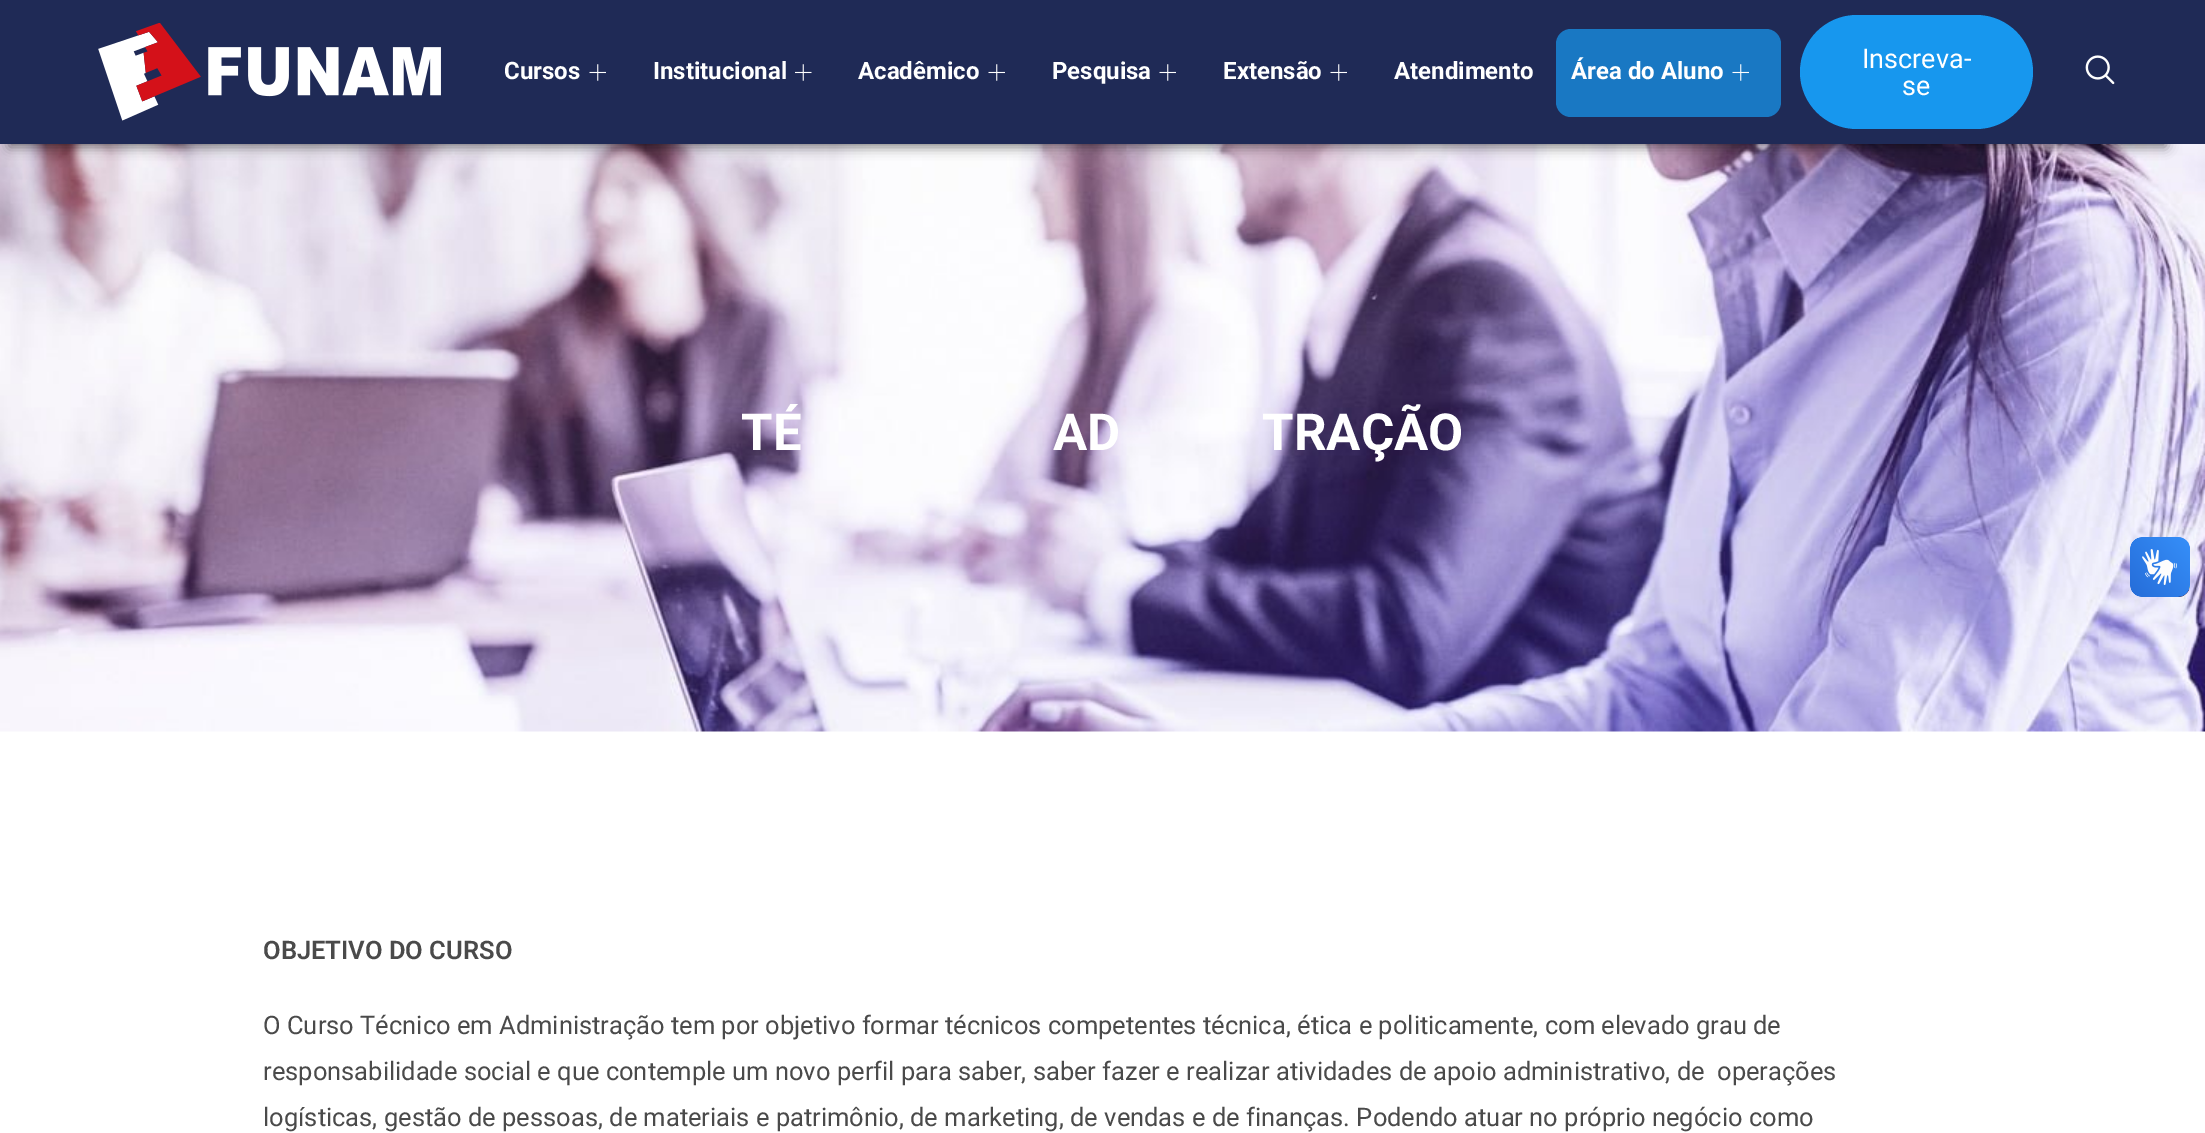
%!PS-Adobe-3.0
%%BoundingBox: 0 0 2205 1133
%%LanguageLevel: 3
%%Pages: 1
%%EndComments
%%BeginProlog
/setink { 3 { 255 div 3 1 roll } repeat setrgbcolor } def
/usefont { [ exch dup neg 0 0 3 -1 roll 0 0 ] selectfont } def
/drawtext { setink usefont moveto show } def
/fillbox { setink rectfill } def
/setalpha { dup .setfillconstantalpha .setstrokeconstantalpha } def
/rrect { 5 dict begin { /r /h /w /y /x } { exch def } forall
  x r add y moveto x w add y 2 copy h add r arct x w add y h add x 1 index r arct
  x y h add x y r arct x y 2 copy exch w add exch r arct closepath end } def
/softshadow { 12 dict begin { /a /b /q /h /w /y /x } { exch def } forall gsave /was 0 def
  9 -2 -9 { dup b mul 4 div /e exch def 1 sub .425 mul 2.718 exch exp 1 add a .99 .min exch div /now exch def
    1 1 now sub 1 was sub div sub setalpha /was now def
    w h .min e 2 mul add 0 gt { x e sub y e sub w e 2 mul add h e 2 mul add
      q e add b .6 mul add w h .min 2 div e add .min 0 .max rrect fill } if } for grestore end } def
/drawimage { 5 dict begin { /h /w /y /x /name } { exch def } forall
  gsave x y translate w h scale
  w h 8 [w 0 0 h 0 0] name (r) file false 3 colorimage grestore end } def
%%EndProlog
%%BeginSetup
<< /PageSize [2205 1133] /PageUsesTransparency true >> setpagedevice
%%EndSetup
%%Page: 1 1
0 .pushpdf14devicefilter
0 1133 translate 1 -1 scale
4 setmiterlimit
0 0 2205 1133 255 255 255 fillbox
(assets/img6.rgb) 0 144 2205 588 drawimage
0 0 0 setink
9 51 2157 96 0 6 0.5 softshadow
0 0 2205 144 31 42 86 fillbox
(assets/img1.rgb) 98 23 343 98 drawimage
(Cursos) 504 79 /Roboto-Bold 24 255 255 255 drawtext
(assets/img2.rgb) 589 64 17 17 drawimage
(Institucional) 653 79 /Roboto-Bold 24 255 255 255 drawtext
(assets/img3.rgb) 795 64 17 17 drawimage
(Acadêmico) 858 79 /Roboto-Bold 24 255 255 255 drawtext
(assets/img2.rgb) 988 64 17 17 drawimage
(Pesquisa) 1052 79 /Roboto-Bold 24 255 255 255 drawtext
(assets/img2.rgb) 1159 64 17 17 drawimage
(Extensão) 1223 79 /Roboto-Bold 24 255 255 255 drawtext
(assets/img2.rgb) 1330 64 17 17 drawimage
(Atendimento) 1394 79 /Roboto-Bold 24 255 255 255 drawtext
25 120 195 setink
1556 29 225 88 15 rrect fill
(Área do Aluno) 1571 79 /Roboto-Bold 24 255 255 255 drawtext
(assets/img4.rgb) 1732 64 17 17 drawimage
23 151 238 setink
1800 15 233 114 57 rrect fill
(Inscreva-) 1862 68 /Roboto-Regular 27 255 255 255 drawtext
(se) 1902 95 /Roboto-Regular 27 255 255 255 drawtext
(assets/img5.rgb) 2085 55 30 30 drawimage
(TÉ) 741 450 /Roboto-Bold 51 255 255 255 drawtext
(AD) 1053 450 /Roboto-Bold 51 255 255 255 drawtext
(TRAÇÃO) 1262 450 /Roboto-Bold 51 255 255 255 drawtext
(OBJETIVO DO CURSO) 263 959 /Roboto-SemiBold 25.5 74 74 74 drawtext
(O Curso Técnico em Administração tem por objetivo formar técnicos competentes técnica, ética e politicamente, com elevado grau de) 263 1034 /Roboto-Regular 25.5 74 74 74 drawtext
(responsabilidade social e que contemple um novo perfil para saber, saber fazer e realizar atividades de apoio administrativo, de  operações) 263 1080 /Roboto-Regular 25.5 74 74 74 drawtext
(logísticas, gestão de pessoas, de materiais e patrimônio, de marketing, de vendas e de finanças. Podendo atuar no próprio negócio como) 263 1126 /Roboto-Regular 25.5 74 74 74 drawtext
(assets/img7.rgb) 2130 537 60 60 drawimage
(assets/img8.rgb) 2130 537 60 60 drawimage
.poppdf14devicefilter showpage
%%EOF
